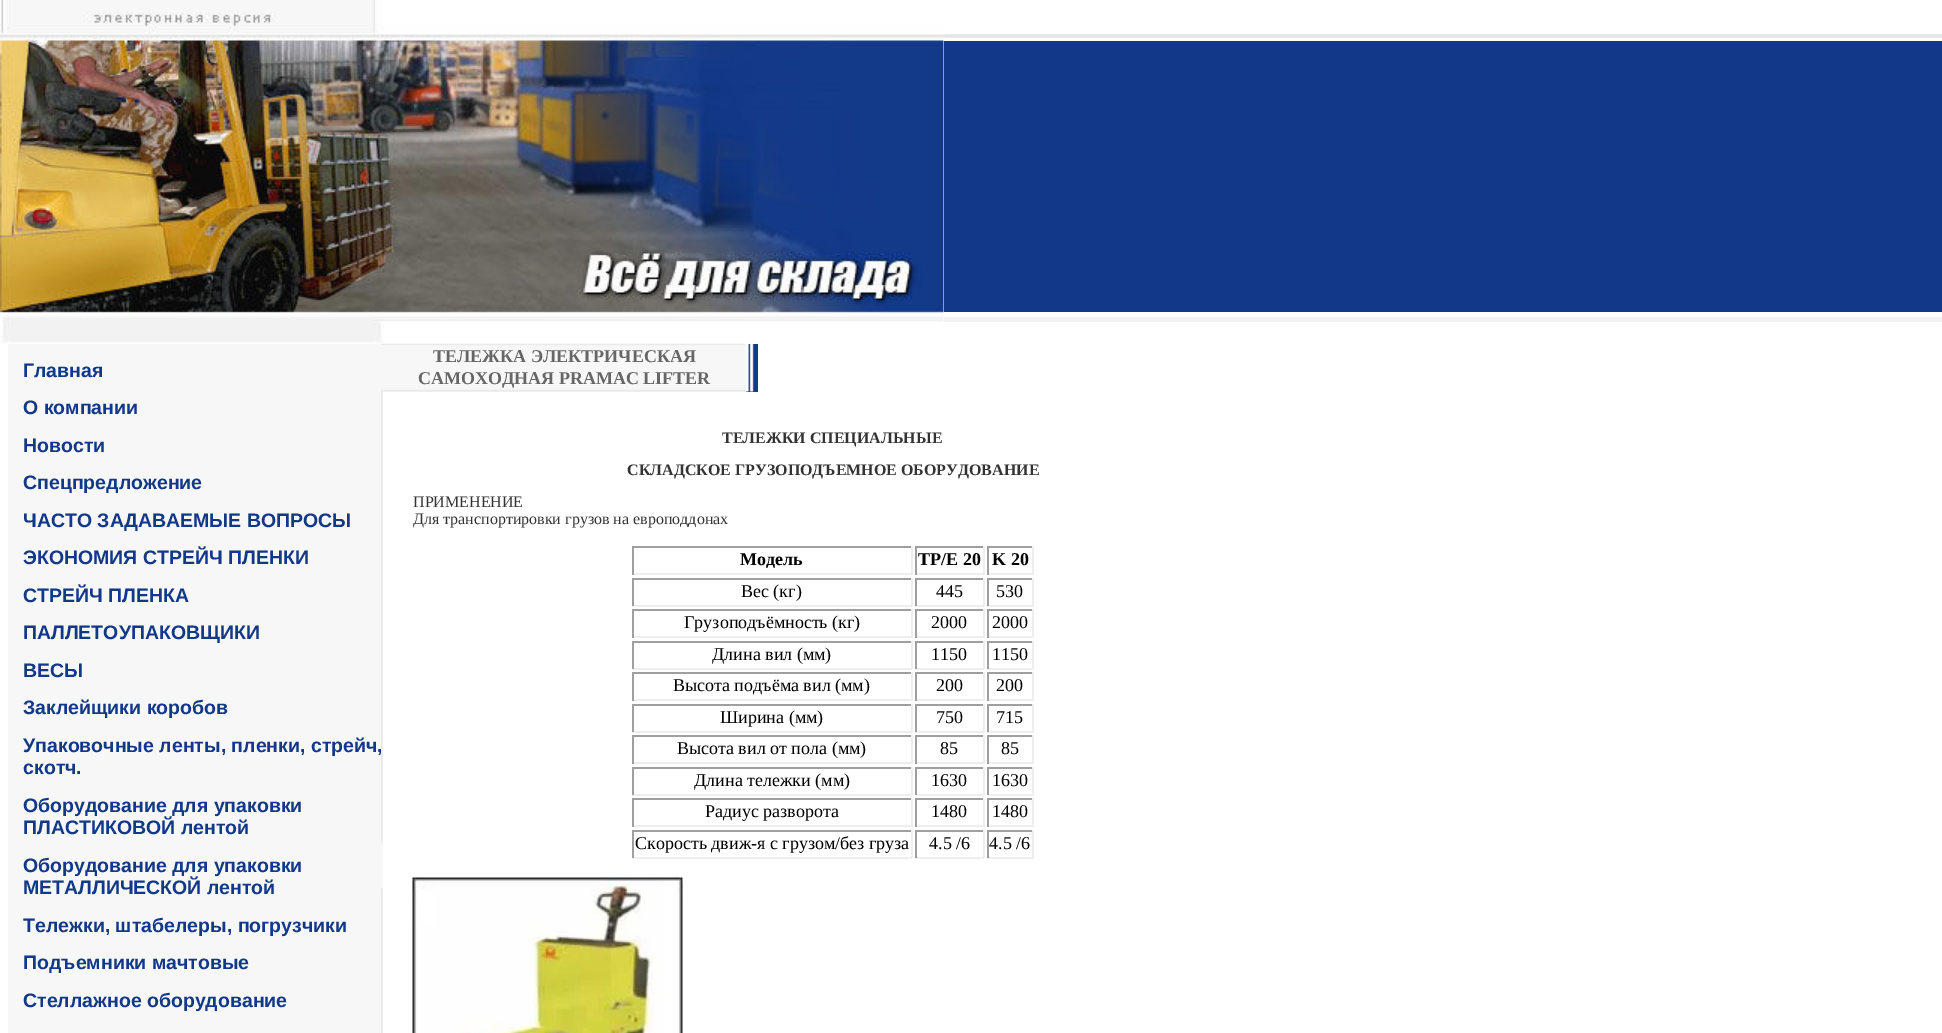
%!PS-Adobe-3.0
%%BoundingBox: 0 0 1942 1033
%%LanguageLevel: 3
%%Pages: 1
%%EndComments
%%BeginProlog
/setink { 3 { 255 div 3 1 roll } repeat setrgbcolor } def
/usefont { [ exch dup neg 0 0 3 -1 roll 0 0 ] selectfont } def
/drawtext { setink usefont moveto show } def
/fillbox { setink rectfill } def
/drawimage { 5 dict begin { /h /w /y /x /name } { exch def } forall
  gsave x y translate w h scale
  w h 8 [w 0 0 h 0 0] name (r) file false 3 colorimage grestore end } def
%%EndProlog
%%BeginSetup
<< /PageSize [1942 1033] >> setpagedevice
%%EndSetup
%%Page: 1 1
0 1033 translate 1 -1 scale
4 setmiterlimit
0 0 1942 1033 255 255 255 fillbox
943 34 999 4 231 231 231 fillbox
8 344 375 689 247 247 247 fillbox
(assets/img3.rgb) 381 343 2 690 drawimage
383 344 363 48 247 247 247 fillbox
(assets/img4.rgb) 382 343 364 49 drawimage
(assets/img1.rgb) 0 0 944 344 drawimage
(assets/img2.rgb) 943 34 2 7 drawimage
944 41 998 271 18 57 137 fillbox
944 317 998 5 242 242 242 fillbox
(Главная) 23 377 /LiberationSans-Bold 19.5 18 57 137 drawtext
(О компании) 23 414 /LiberationSans-Bold 19.5 18 57 137 drawtext
(Новости) 23 452 /LiberationSans-Bold 19.5 18 57 137 drawtext
(Спецпредложение) 23 489 /LiberationSans-Bold 19.5 18 57 137 drawtext
(ЧАСТО ЗАДАВАЕМЫЕ ВОПРОСЫ) 23 527 /LiberationSans-Bold 19.5 18 57 137 drawtext
(ЭКОНОМИЯ СТРЕЙЧ ПЛЕНКИ) 23 564 /LiberationSans-Bold 19.5 18 57 137 drawtext
(СТРЕЙЧ ПЛЕНКА) 23 602 /LiberationSans-Bold 19.5 18 57 137 drawtext
(ПАЛЛЕТОУПАКОВЩИКИ) 23 639 /LiberationSans-Bold 19.5 18 57 137 drawtext
(ВЕСЫ) 23 677 /LiberationSans-Bold 19.5 18 57 137 drawtext
(Заклейщики коробов) 23 714 /LiberationSans-Bold 19.5 18 57 137 drawtext
(Упаковочные ленты, пленки, стрейч,) 23 752 /LiberationSans-Bold 19.5 18 57 137 drawtext
(скотч.) 23 774 /LiberationSans-Bold 19.5 18 57 137 drawtext
(Оборудование для упаковки) 23 812 /LiberationSans-Bold 19.5 18 57 137 drawtext
(ПЛАСТИКОВОЙ лентой) 23 834 /LiberationSans-Bold 19.5 18 57 137 drawtext
(Оборудование для упаковки) 23 872 /LiberationSans-Bold 19.5 18 57 137 drawtext
(МЕТАЛЛИЧЕСКОЙ лентой) 23 894 /LiberationSans-Bold 19.5 18 57 137 drawtext
(Тележки, штабелеры, погрузчики) 23 932 /LiberationSans-Bold 19.5 18 57 137 drawtext
(Подъемники мачтовые) 23 969 /LiberationSans-Bold 19.5 18 57 137 drawtext
(Стеллажное оборудование) 23 1007 /LiberationSans-Bold 19.5 18 57 137 drawtext
(ТЕЛЕЖКА ЭЛЕКТРИЧЕСКАЯ) 433 362 /LiberationSerif-Bold 18 102 102 102 drawtext
(САМОХОДНАЯ PRAMAC LIFTER) 418 384 /LiberationSerif-Bold 18 102 102 102 drawtext
746 344 12 48 18 57 137 fillbox
(assets/img5.rgb) 745 344 9 48 drawimage
(ТЕЛЕЖКИ СПЕЦИАЛЬНЫЕ) 722 443 /LiberationSerif-Bold 16 51 51 51 drawtext
(СКЛАДСКОЕ ГРУЗОПОДЪЕМНОЕ ОБОРУДОВАНИЕ) 627 475 /LiberationSerif-Bold 16 51 51 51 drawtext
(ПРИМЕНЕНИЕ) 413 507 /LiberationSerif-Regular 16 51 51 51 drawtext
(Для транспортировки грузов на европоддонах) 413 524 /LiberationSerif-Regular 16 51 51 51 drawtext
632 546 280 2 159 159 159 fillbox
911 546 2 29 238 238 238 fillbox
632 573 280 2 238 238 238 fillbox
632 546 2 29 159 159 159 fillbox
(Модель) 740 565 /LiberationSerif-Bold 18 0 0 0 drawtext
915 546 69 2 159 159 159 fillbox
983 546 2 29 238 238 238 fillbox
915 573 69 2 238 238 238 fillbox
915 546 2 29 159 159 159 fillbox
(TP/E 20) 918 565 /LiberationSerif-Bold 18 0 0 0 drawtext
987 546 47 2 159 159 159 fillbox
1032 546 2 29 238 238 238 fillbox
987 573 47 2 238 238 238 fillbox
987 546 2 29 159 159 159 fillbox
(K 20) 992 565 /LiberationSerif-Bold 18 0 0 0 drawtext
632 578 280 2 159 159 159 fillbox
911 578 2 28 238 238 238 fillbox
632 605 280 2 238 238 238 fillbox
632 578 2 28 159 159 159 fillbox
(Вес \(кг\)) 741 597 /LiberationSerif-Regular 18 0 0 0 drawtext
915 578 69 2 159 159 159 fillbox
983 578 2 28 238 238 238 fillbox
915 605 69 2 238 238 238 fillbox
915 578 2 28 159 159 159 fillbox
(445) 936 597 /LiberationSerif-Regular 18 0 0 0 drawtext
987 578 47 2 159 159 159 fillbox
1032 578 2 28 238 238 238 fillbox
987 605 47 2 238 238 238 fillbox
987 578 2 28 159 159 159 fillbox
(530) 996 597 /LiberationSerif-Regular 18 0 0 0 drawtext
632 609 280 2 159 159 159 fillbox
911 609 2 29 238 238 238 fillbox
632 636 280 2 238 238 238 fillbox
632 609 2 29 159 159 159 fillbox
(Грузоподъёмность \(кг\)) 684 628 /LiberationSerif-Regular 18 0 0 0 drawtext
915 609 69 2 159 159 159 fillbox
983 609 2 29 238 238 238 fillbox
915 636 69 2 238 238 238 fillbox
915 609 2 29 159 159 159 fillbox
(2000) 931 628 /LiberationSerif-Regular 18 0 0 0 drawtext
987 609 47 2 159 159 159 fillbox
1032 609 2 29 238 238 238 fillbox
987 636 47 2 238 238 238 fillbox
987 609 2 29 159 159 159 fillbox
(2000) 992 628 /LiberationSerif-Regular 18 0 0 0 drawtext
632 641 280 2 159 159 159 fillbox
911 641 2 28 238 238 238 fillbox
632 668 280 2 238 238 238 fillbox
632 641 2 28 159 159 159 fillbox
(Длина вил \(мм\)) 712 660 /LiberationSerif-Regular 18 0 0 0 drawtext
915 641 69 2 159 159 159 fillbox
983 641 2 28 238 238 238 fillbox
915 668 69 2 238 238 238 fillbox
915 641 2 28 159 159 159 fillbox
(1150) 931 660 /LiberationSerif-Regular 18 0 0 0 drawtext
987 641 47 2 159 159 159 fillbox
1032 641 2 28 238 238 238 fillbox
987 668 47 2 238 238 238 fillbox
987 641 2 28 159 159 159 fillbox
(1150) 992 660 /LiberationSerif-Regular 18 0 0 0 drawtext
632 672 280 2 159 159 159 fillbox
911 672 2 29 238 238 238 fillbox
632 699 280 2 238 238 238 fillbox
632 672 2 29 159 159 159 fillbox
(Высота подъёма вил \(мм\)) 673 691 /LiberationSerif-Regular 18 0 0 0 drawtext
915 672 69 2 159 159 159 fillbox
983 672 2 29 238 238 238 fillbox
915 699 69 2 238 238 238 fillbox
915 672 2 29 159 159 159 fillbox
(200) 936 691 /LiberationSerif-Regular 18 0 0 0 drawtext
987 672 47 2 159 159 159 fillbox
1032 672 2 29 238 238 238 fillbox
987 699 47 2 238 238 238 fillbox
987 672 2 29 159 159 159 fillbox
(200) 996 691 /LiberationSerif-Regular 18 0 0 0 drawtext
632 704 280 2 159 159 159 fillbox
911 704 2 28 238 238 238 fillbox
632 731 280 2 238 238 238 fillbox
632 704 2 28 159 159 159 fillbox
(Ширина \(мм\)) 720 723 /LiberationSerif-Regular 18 0 0 0 drawtext
915 704 69 2 159 159 159 fillbox
983 704 2 28 238 238 238 fillbox
915 731 69 2 238 238 238 fillbox
915 704 2 28 159 159 159 fillbox
(750) 936 723 /LiberationSerif-Regular 18 0 0 0 drawtext
987 704 47 2 159 159 159 fillbox
1032 704 2 28 238 238 238 fillbox
987 731 47 2 238 238 238 fillbox
987 704 2 28 159 159 159 fillbox
(715) 996 723 /LiberationSerif-Regular 18 0 0 0 drawtext
632 735 280 2 159 159 159 fillbox
911 735 2 29 238 238 238 fillbox
632 762 280 2 238 238 238 fillbox
632 735 2 29 159 159 159 fillbox
(Высота вил от пола \(мм\)) 677 754 /LiberationSerif-Regular 18 0 0 0 drawtext
915 735 69 2 159 159 159 fillbox
983 735 2 29 238 238 238 fillbox
915 762 69 2 238 238 238 fillbox
915 735 2 29 159 159 159 fillbox
(85) 940 754 /LiberationSerif-Regular 18 0 0 0 drawtext
987 735 47 2 159 159 159 fillbox
1032 735 2 29 238 238 238 fillbox
987 762 47 2 238 238 238 fillbox
987 735 2 29 159 159 159 fillbox
(85) 1001 754 /LiberationSerif-Regular 18 0 0 0 drawtext
632 767 280 2 159 159 159 fillbox
911 767 2 28 238 238 238 fillbox
632 794 280 2 238 238 238 fillbox
632 767 2 28 159 159 159 fillbox
(Длина тележки \(мм\)) 694 786 /LiberationSerif-Regular 18 0 0 0 drawtext
915 767 69 2 159 159 159 fillbox
983 767 2 28 238 238 238 fillbox
915 794 69 2 238 238 238 fillbox
915 767 2 28 159 159 159 fillbox
(1630) 931 786 /LiberationSerif-Regular 18 0 0 0 drawtext
987 767 47 2 159 159 159 fillbox
1032 767 2 28 238 238 238 fillbox
987 794 47 2 238 238 238 fillbox
987 767 2 28 159 159 159 fillbox
(1630) 992 786 /LiberationSerif-Regular 18 0 0 0 drawtext
632 798 280 2 159 159 159 fillbox
911 798 2 29 238 238 238 fillbox
632 825 280 2 238 238 238 fillbox
632 798 2 29 159 159 159 fillbox
(Радиус разворота) 705 817 /LiberationSerif-Regular 18 0 0 0 drawtext
915 798 69 2 159 159 159 fillbox
983 798 2 29 238 238 238 fillbox
915 825 69 2 238 238 238 fillbox
915 798 2 29 159 159 159 fillbox
(1480) 931 817 /LiberationSerif-Regular 18 0 0 0 drawtext
987 798 47 2 159 159 159 fillbox
1032 798 2 29 238 238 238 fillbox
987 825 47 2 238 238 238 fillbox
987 798 2 29 159 159 159 fillbox
(1480) 992 817 /LiberationSerif-Regular 18 0 0 0 drawtext
632 830 280 2 159 159 159 fillbox
911 830 2 28 238 238 238 fillbox
632 857 280 2 238 238 238 fillbox
632 830 2 28 159 159 159 fillbox
(Скорость движ-я с грузом/без груза) 635 849 /LiberationSerif-Regular 18 0 0 0 drawtext
915 830 69 2 159 159 159 fillbox
983 830 2 28 238 238 238 fillbox
915 857 69 2 238 238 238 fillbox
915 830 2 28 159 159 159 fillbox
(4.5 /6) 929 849 /LiberationSerif-Regular 18 0 0 0 drawtext
987 830 47 2 159 159 159 fillbox
1032 830 2 28 238 238 238 fillbox
987 857 47 2 238 238 238 fillbox
987 830 2 28 159 159 159 fillbox
(4.5 /6) 989 849 /LiberationSerif-Regular 18 0 0 0 drawtext
(assets/img6.rgb) 412 877 271 156 drawimage
showpage
%%EOF
